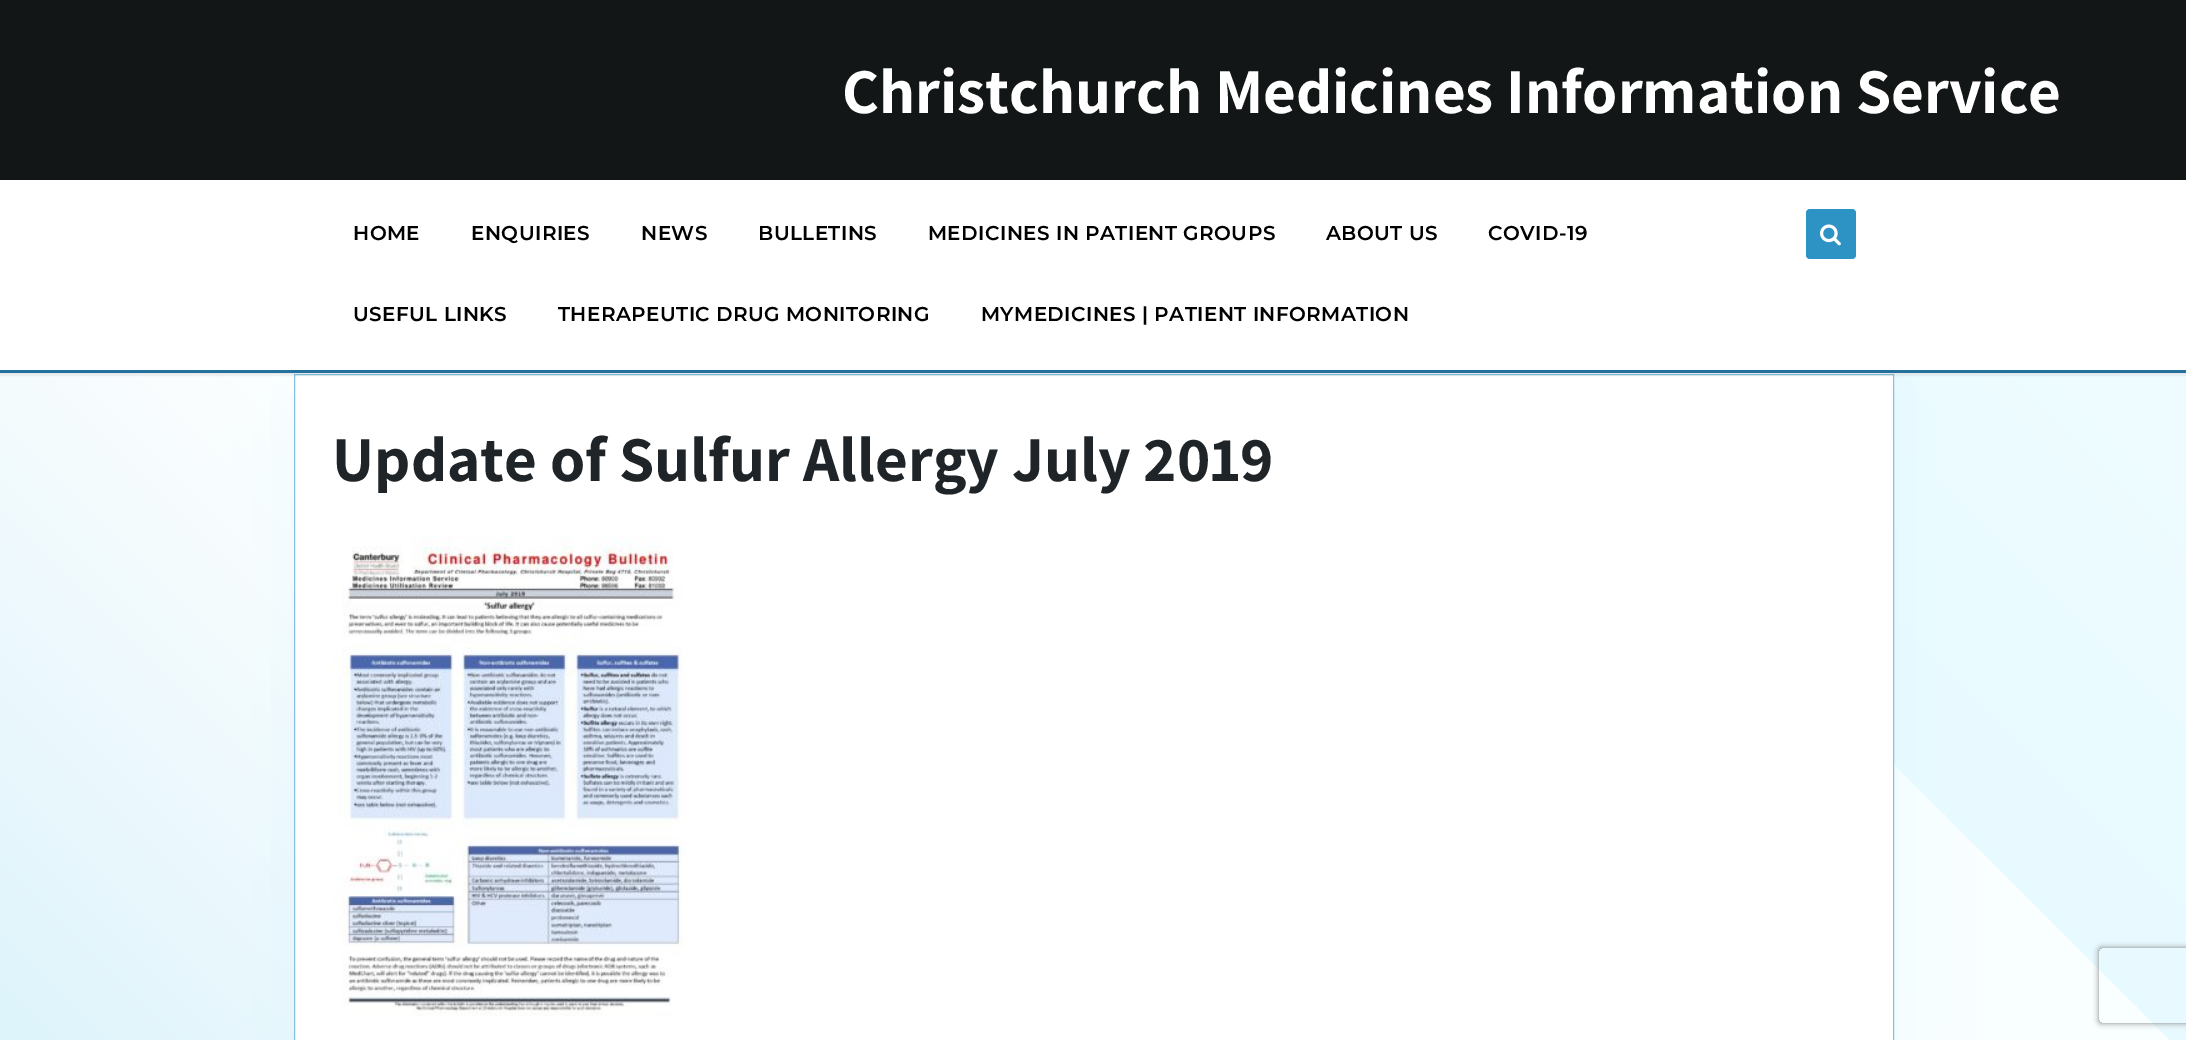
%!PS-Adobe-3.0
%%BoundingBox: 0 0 2186 1040
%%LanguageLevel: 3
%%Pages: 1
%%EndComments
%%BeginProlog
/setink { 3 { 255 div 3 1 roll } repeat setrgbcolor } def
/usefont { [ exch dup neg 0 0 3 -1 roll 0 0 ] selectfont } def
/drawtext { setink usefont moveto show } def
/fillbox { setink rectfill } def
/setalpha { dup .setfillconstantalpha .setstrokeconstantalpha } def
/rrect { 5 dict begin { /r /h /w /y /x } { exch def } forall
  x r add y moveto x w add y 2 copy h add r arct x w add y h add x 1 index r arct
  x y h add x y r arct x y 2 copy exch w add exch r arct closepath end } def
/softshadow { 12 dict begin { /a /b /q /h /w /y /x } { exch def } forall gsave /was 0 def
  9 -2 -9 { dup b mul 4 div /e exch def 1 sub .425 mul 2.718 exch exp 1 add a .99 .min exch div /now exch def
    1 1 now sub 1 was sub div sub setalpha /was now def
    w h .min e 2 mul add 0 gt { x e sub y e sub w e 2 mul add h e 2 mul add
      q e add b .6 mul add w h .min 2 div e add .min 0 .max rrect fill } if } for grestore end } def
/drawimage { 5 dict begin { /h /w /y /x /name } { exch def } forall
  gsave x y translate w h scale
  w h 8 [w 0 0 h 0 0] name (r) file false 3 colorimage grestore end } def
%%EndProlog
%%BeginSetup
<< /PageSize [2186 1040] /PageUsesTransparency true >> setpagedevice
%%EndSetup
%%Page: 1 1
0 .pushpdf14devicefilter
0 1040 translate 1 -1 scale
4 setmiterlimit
0 0 2186 1040 255 255 255 fillbox
gsave 0 374 moveto 2186 374 lineto 2186 1040 lineto 0 1040 lineto closepath clip newpath
<< /ShadingType 2 /ColorSpace /DeviceRGB /Coords [213 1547 1973 -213] /Extend [true true] /Function << /FunctionType 3 /Domain [0 1] /Functions [<< /FunctionType 2 /Domain [0 1] /C0 [0.827 0.945 0.98] /C1 [1 1 1] /N 1 >> << /FunctionType 2 /Domain [0 1] /C0 [1 1 1] /C1 [0.976 0.996 1] /N 1 >> << /FunctionType 2 /Domain [0 1] /C0 [0.906 0.98 1] /C1 [0.961 1 1] /N 1 >>] /Bounds [0.36 0.7] /Encode [0 1 0 1 0 1] >> >> shfill grestore
184 228 255 setink
300 380 1588 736 0 39 0.2 softshadow
255 255 255 setink
294.5 374.5 moveto 1893.5 374.5 lineto 1893.5 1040.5 lineto 294.5 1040.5 lineto closepath gsave fill grestore
133 194 224 setink
stroke
0.05 setalpha
0 0 0 setink
3 setlinewidth
-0.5 179.5 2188 195 rectstroke
1 setalpha
0 0 2186 180 18 22 23 fillbox
(Christchurch Medicines Information Service) 842 113 /Assistant-Bold 63.75 255 255 255 drawtext
0 180 2186 190 255 255 255 fillbox
0 373 2186 1 230 230 230 fillbox
0 370 2186 3 36 113 158 fillbox
/Montserrat-SemiBold 20 usefont
0 0 0 setink
353 240 moveto 0.4 0 (HOME) ashow
471 240 moveto 0.4 0 (ENQUIRIES) ashow
641 240 moveto 0.4 0 (NEWS) ashow
758 240 moveto 0.4 0 (BULLETINS) ashow
928 240 moveto 0.4 0 (MEDICINES IN PATIENT GROUPS) ashow
1326 240 moveto 0.4 0 (ABOUT US) ashow
1488 240 moveto 0.4 0 (COVID-19) ashow
353 321 moveto 0.4 0 (USEFUL LINKS) ashow
558 321 moveto 0.4 0 (THERAPEUTIC DRUG MONITORING) ashow
981 321 moveto 0.4 0 (MYMEDICINES | PATIENT INFORMATION) ashow
45 147 197 setink
1806 209 50 50 4 rrect fill
(assets/img1.rgb) 1820 224 21 22 drawimage
(Update of Sulfur Allergy July 2019) 332 481 /Assistant-Bold 63.75 30 36 39 drawtext
(assets/img2.rgb) 332 536 354 480 drawimage
gsave
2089 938 moveto 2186 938 lineto 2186 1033 lineto 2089 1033 lineto closepath 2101.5 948 moveto 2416.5 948 lineto 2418 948 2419 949 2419 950.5 curveto 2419 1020.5 lineto 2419 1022 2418 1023 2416.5 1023 curveto 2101.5 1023 lineto 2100 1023 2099 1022 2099 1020.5 curveto 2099 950.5 lineto 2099 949 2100 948 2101.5 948 curveto closepath eoclip newpath
128 128 128 setink
2099 948 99 75 2.5 3 1 softshadow
grestore
.poppdf14devicefilter showpage
%%EOF
